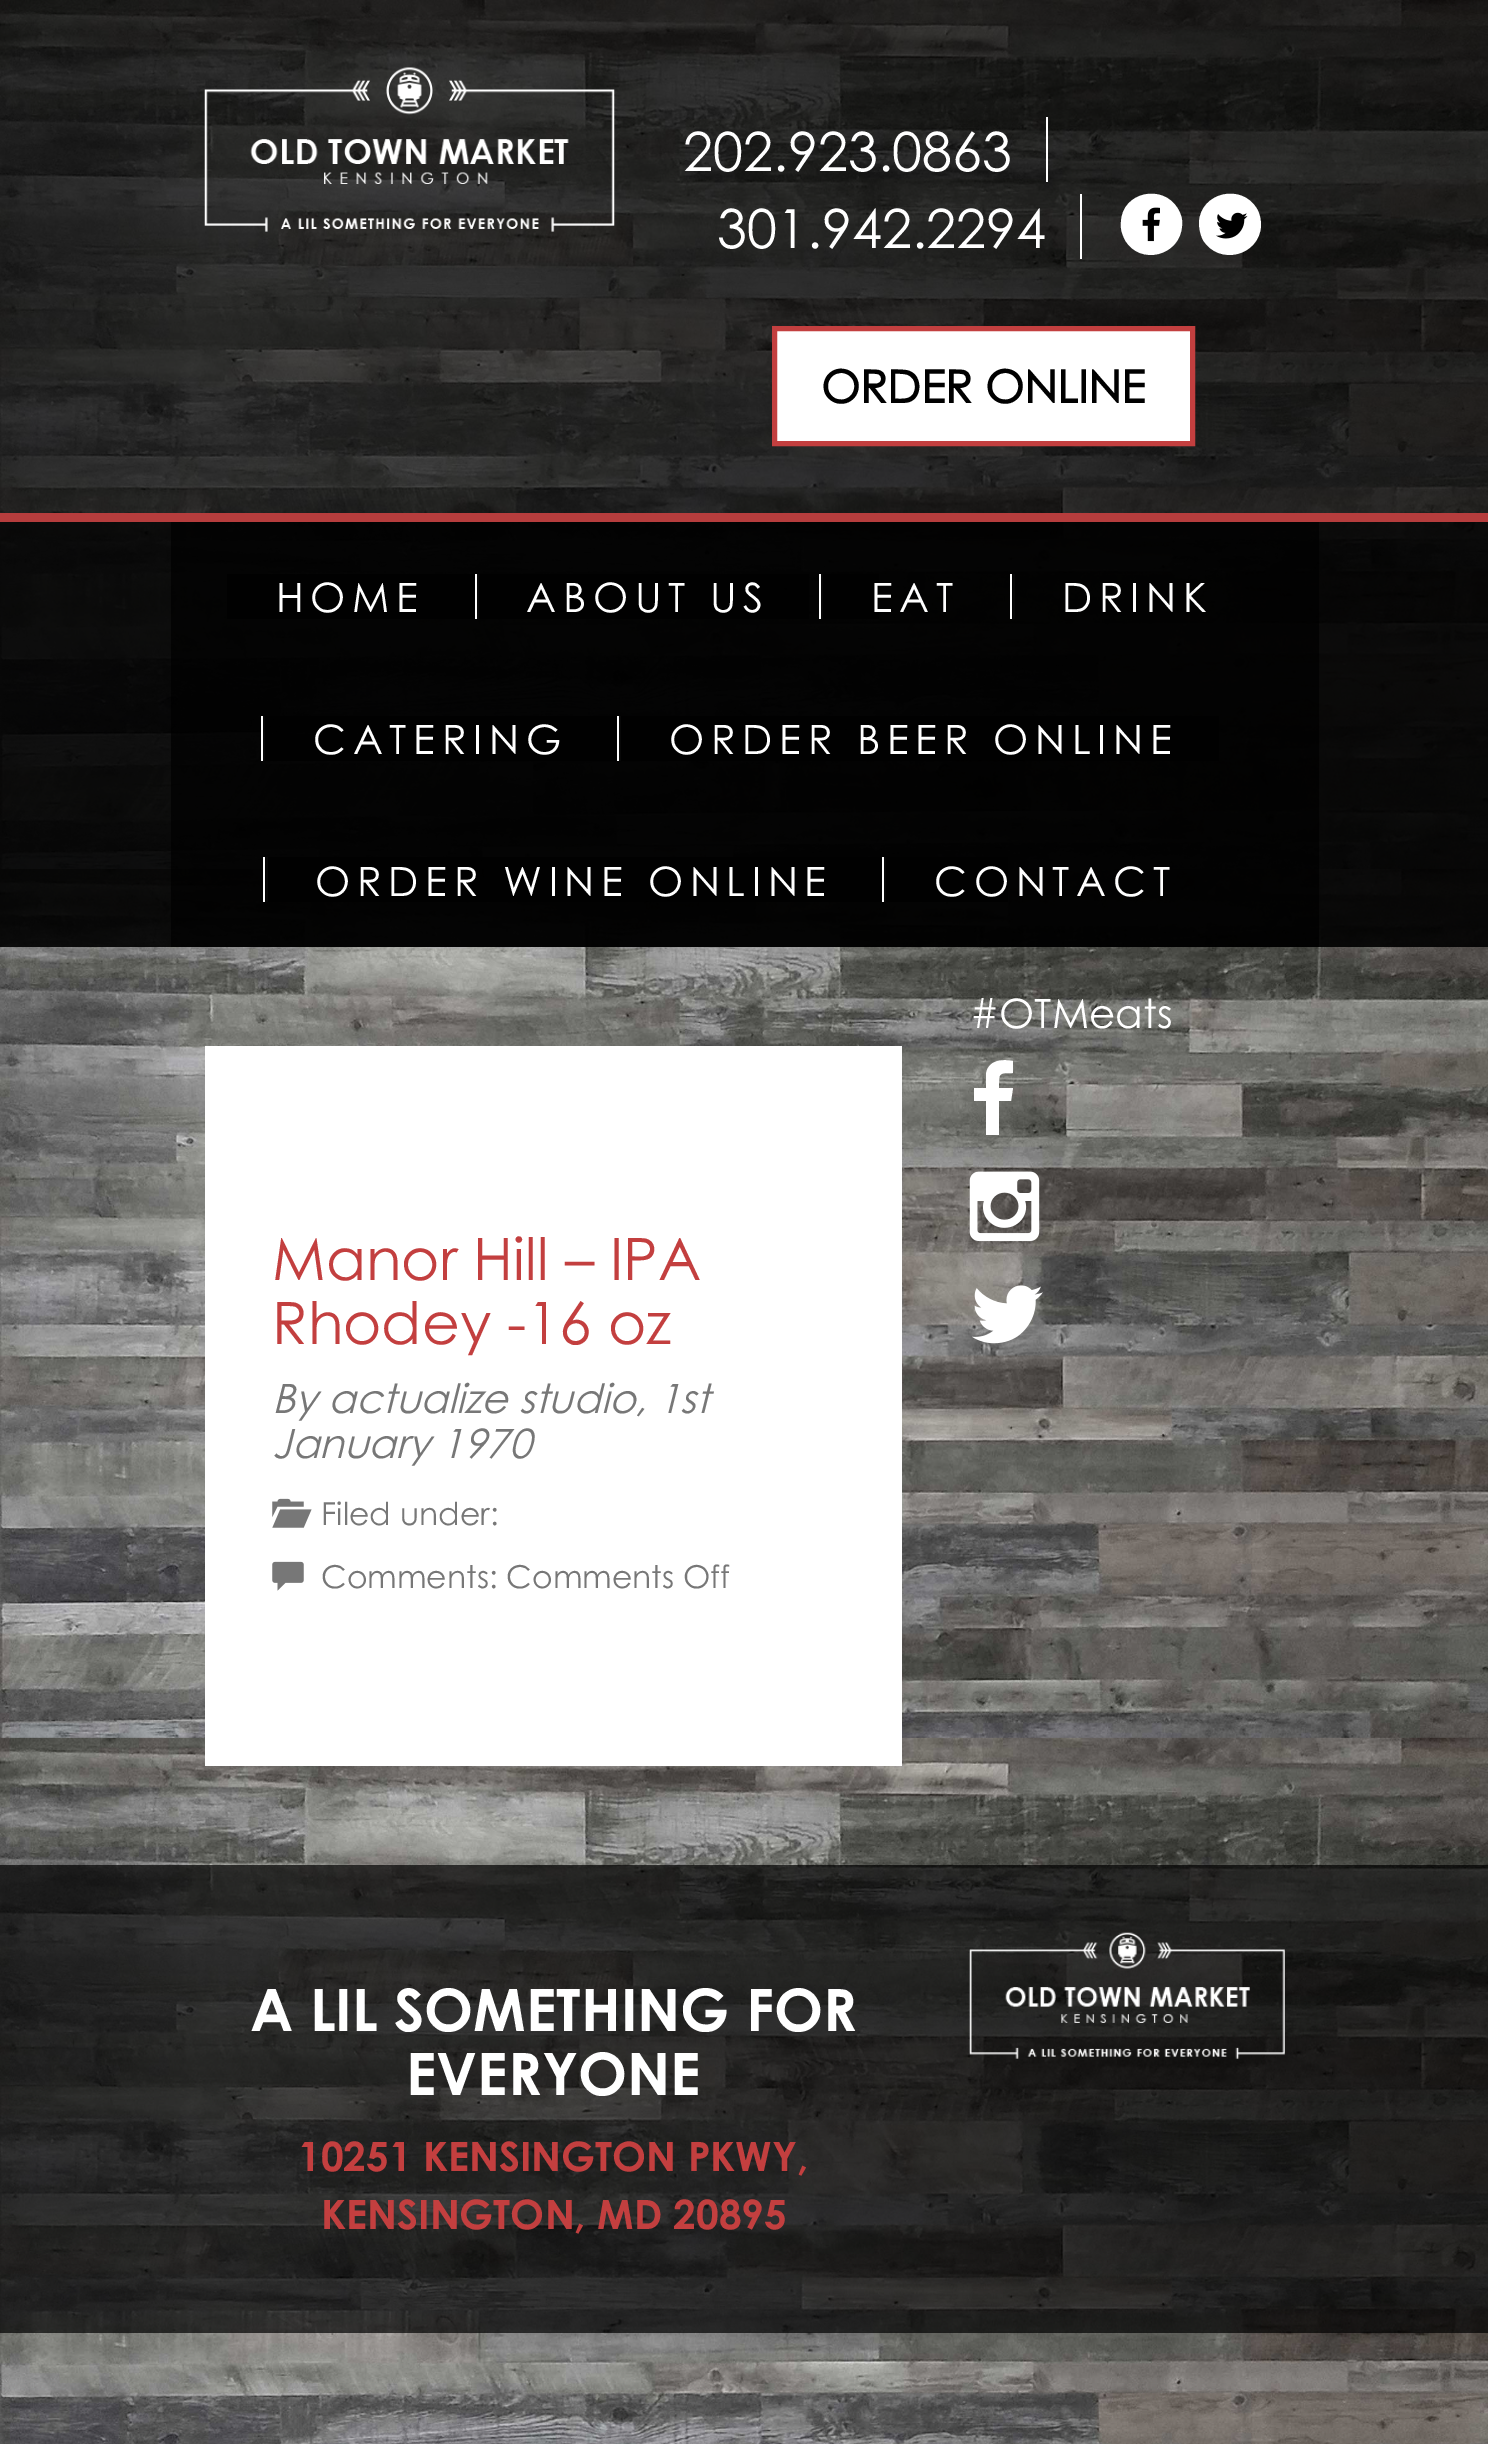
%!PS-Adobe-3.0
%%BoundingBox: 0 0 1488 2444
%%LanguageLevel: 3
%%Pages: 1
%%EndComments
%%BeginProlog
/setink { 3 { 255 div 3 1 roll } repeat setrgbcolor } def
/usefont { [ exch dup neg 0 0 3 -1 roll 0 0 ] selectfont } def
/drawtext { setink usefont moveto show } def
/fillbox { setink rectfill } def
/setalpha { dup .setfillconstantalpha .setstrokeconstantalpha } def
/drawimage { 5 dict begin { /h /w /y /x /name } { exch def } forall
  gsave x y translate w h scale
  w h 8 [w 0 0 h 0 0] name (r) file false 3 colorimage grestore end } def
%%EndProlog
%%BeginSetup
<< /PageSize [1488 2444] /PageUsesTransparency true >> setpagedevice
%%EndSetup
%%Page: 1 1
0 .pushpdf14devicefilter
0 2444 translate 1 -1 scale
4 setmiterlimit
0 0 1488 2444 255 255 255 fillbox
(assets/img1.rgb) 0 0 1488 2444 drawimage
0.7 setalpha
0 0 1488 947 0 0 0 fillbox
1 setalpha
(assets/img2.rgb) 204 67 411 165 drawimage
(202.923.0863) 683 171 /CenturyGothic-Regular 54 255 255 255 drawtext
1046 117 2 65 255 255 255 fillbox
(301.942.2294) 717 248 /CenturyGothic-Regular 54 255 255 255 drawtext
1080 194 2 65 255 255 255 fillbox
1178 209 moveto 1181 214 1183 220 1182 226 curveto 1180 256 1140 266 1125 240 curveto 1122 234 1120 228 1121 222 curveto 1122 192 1163 183 1178 209 curveto closepath fill
(assets/img3.rgb) 1142 207 18 35 drawimage
1257 209 moveto 1260 214 1261 220 1261 226 curveto 1259 256 1219 266 1203 240 curveto 1200 234 1199 228 1199 222 curveto 1201 192 1242 183 1257 209 curveto closepath fill
(assets/img4.rgb) 1216 212 32 27 drawimage
774.5 328.5 moveto 1192.5 328.5 lineto 1192.5 443.5 lineto 774.5 443.5 lineto closepath gsave fill grestore
195 63 63 setink
5 setlinewidth
stroke
(ORDER ONLINE) 821 403 /CenturyGothic-Bold 45 0 0 0 drawtext
0.7 setalpha
0 522 1488 425 0 0 0 fillbox
1 setalpha
0 513 1488 9 182 61 61 fillbox
0.7 setalpha
171 522 1148 425 0 0 0 fillbox
227 574 248 45 0 0 0 fillbox
/CenturyGothic-Regular 40.5 usefont
1 setalpha
255 255 255 setink
276 612 moveto 6.75 0 (HOME) ashow
477 574 2 45 29 29 29 fillbox
475 574 2 45 255 255 255 fillbox
0.7 setalpha
477 574 332 45 0 0 0 fillbox
1 setalpha
255 255 255 setink
526 612 moveto 6.75 0 (ABOUT US) ashow
821 574 2 45 28 28 28 fillbox
819 574 2 45 255 255 255 fillbox
0.7 setalpha
821 574 58 45 0 0 0 fillbox
1 setalpha
255 255 255 setink
871 612 moveto 6.75 0 (EAT) ashow
1013 574 2 45 28 28 28 fillbox
1010 574 2 45 255 255 255 fillbox
0.7 setalpha
1013 574 2 45 0 0 0 fillbox
1 setalpha
255 255 255 setink
1062 612 moveto 6.75 0 (DRINK) ashow
0.1 setalpha
263 716 2 45 255 255 255 fillbox
1 setalpha
261 716 2 45 255 255 255 fillbox
0.7 setalpha
263 716 354 45 0 0 0 fillbox
1 setalpha
255 255 255 setink
313 754 moveto 6.75 0 (CATERING) ashow
619 716 2 45 28 28 28 fillbox
617 716 2 45 255 255 255 fillbox
0.7 setalpha
619 716 600 45 0 0 0 fillbox
1 setalpha
255 255 255 setink
669 754 moveto 6.75 0 (ORDER BEER ONLINE) ashow
266 857 2 45 28 28 28 fillbox
263 857 2 45 255 255 255 fillbox
0.7 setalpha
266 857 616 45 0 0 0 fillbox
1 setalpha
255 255 255 setink
315 896 moveto 6.75 0 (ORDER WINE ONLINE) ashow
884 857 2 45 28 28 28 fillbox
882 857 2 45 255 255 255 fillbox
0.7 setalpha
884 857 124 45 0 0 0 fillbox
1 setalpha
255 255 255 setink
934 896 moveto 6.75 0 (CONTACT) ashow
(#OTMeats) 970 1028 /CenturyGothic-Regular 40.5 255 255 255 drawtext
1013 1061 moveto 1013 1073 lineto 998 1073 999 1073 999 1088 curveto 1013 1088 lineto 1011 1101 lineto 999 1101 lineto 999 1135 lineto 986 1135 lineto 986 1101 lineto 974 1101 lineto 974 1088 lineto 986 1088 lineto 986 1074 lineto 988 1060 1002 1059 1013 1061 curveto closepath fill
(assets/img5.rgb) 969 1171 71 71 drawimage
(assets/img6.rgb) 972 1285 71 59 drawimage
205 1046 697 720 255 255 255 fillbox
(Manor Hill – IPA) 272 1280 /CenturyGothic-Regular 58.5 195 63 63 drawtext
(Rhodey -16 oz) 272 1344 /CenturyGothic-Regular 58.5 195 63 63 drawtext
(By actualize studio, 1st) 272 1413 /CenturyGothic-Italic 40.5 119 119 119 drawtext
(January 1970) 272 1458 /CenturyGothic-Italic 40.5 119 119 119 drawtext
(assets/img7.rgb) 272 1498 40 30 drawimage
(Filed under:) 321 1525 /CenturyGothic-Regular 31.5 119 119 119 drawtext
(assets/img8.rgb) 272 1561 32 30 drawimage
(Comments: Comments Off) 321 1588 /CenturyGothic-Regular 31.5 119 119 119 drawtext
0.7 setalpha
0 1865 1488 468 0 0 0 fillbox
1 setalpha
(A LIL SOMETHING FOR) 250 2031 /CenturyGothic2-Bold 58.5 255 255 255 drawtext
(EVERYONE) 406 2095 /CenturyGothic2-Bold 58.5 255 255 255 drawtext
(10251 KENSINGTON PKWY,) 298 2171 /CenturyGothic2-Bold 40.5 195 63 63 drawtext
(KENSINGTON, MD 20895) 321 2229 /CenturyGothic2-Bold 40.5 195 63 63 drawtext
(assets/img9.rgb) 969 1932 316 127 drawimage
.poppdf14devicefilter showpage
%%EOF
